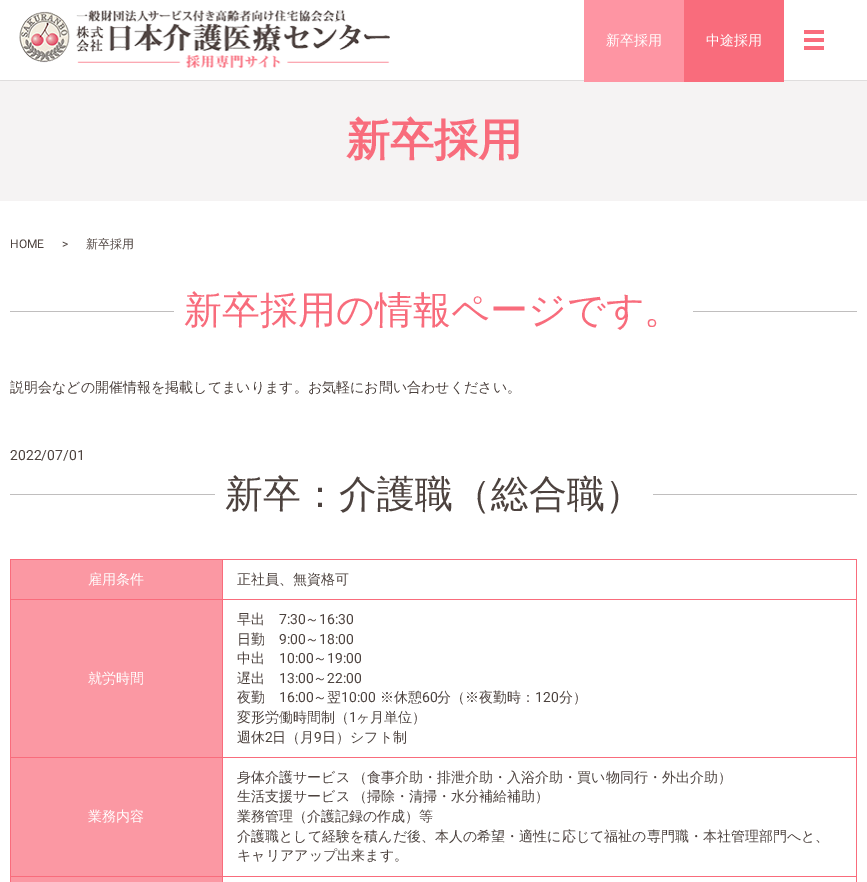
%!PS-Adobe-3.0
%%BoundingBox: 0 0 867 882
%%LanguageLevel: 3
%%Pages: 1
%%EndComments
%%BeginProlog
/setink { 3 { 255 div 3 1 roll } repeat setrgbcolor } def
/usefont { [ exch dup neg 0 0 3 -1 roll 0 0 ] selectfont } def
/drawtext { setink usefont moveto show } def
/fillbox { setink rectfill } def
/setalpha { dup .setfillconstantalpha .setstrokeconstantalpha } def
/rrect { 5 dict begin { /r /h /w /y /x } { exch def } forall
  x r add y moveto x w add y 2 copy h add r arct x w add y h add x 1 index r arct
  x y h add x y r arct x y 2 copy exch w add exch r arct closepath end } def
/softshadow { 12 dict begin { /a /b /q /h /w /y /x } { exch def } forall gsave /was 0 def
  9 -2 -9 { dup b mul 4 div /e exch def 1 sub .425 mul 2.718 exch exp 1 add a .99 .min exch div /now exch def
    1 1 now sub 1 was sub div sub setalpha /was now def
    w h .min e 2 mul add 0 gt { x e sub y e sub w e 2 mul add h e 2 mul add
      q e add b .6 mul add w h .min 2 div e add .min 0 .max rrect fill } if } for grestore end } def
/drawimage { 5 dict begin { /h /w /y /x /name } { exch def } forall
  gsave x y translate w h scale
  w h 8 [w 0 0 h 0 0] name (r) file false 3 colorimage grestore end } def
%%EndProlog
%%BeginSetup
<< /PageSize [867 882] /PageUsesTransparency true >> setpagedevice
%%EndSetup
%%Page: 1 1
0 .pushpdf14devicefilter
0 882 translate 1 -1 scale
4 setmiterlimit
0 0 867 882 255 255 255 fillbox
0 80 867 121 245 243 243 fillbox
gsave
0 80 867 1 rectclip
0 0 0 setink
0 1 867 80 0 0.5 0.1 softshadow
grestore
(assets/img1.rgb) 19 10 371 58 drawimage
584 0 100 82 254 149 163 fillbox
(新卒採用) 606 45 /WenQuanYiZenHei-Medium 14 255 255 255 drawtext
684 0 100 82 249 108 124 fillbox
(中途採用) 706 45 /WenQuanYiZenHei-Medium 14 255 255 255 drawtext
804 30 20 4 249 108 124 fillbox
804 38 20 4 249 108 124 fillbox
804 46 20 4 249 108 124 fillbox
(新卒採用) 346 155 /WenQuanYiZenHei-Bold 44 248 108 124 drawtext
(HOME) 10 248 /Roboto-Regular 12 76 66 62 drawtext
(>) 62 248 /Roboto-Regular 12 76 66 62 drawtext
(新卒採用) 86 248 /WenQuanYiZenHei-Medium 12 76 66 62 drawtext
10 311 164 1 192 190 190 fillbox
(新卒採用の情報ページです。) 184 323 /WenQuanYiZenHei-Medium 38 248 108 124 drawtext
693 311 164 1 192 190 190 fillbox
(説明会などの開催情報を掲載してまいります。お気軽にお問い合わせください。) 10 392 /WenQuanYiZenHei-Medium 14 76 66 62 drawtext
(2022/07/01) 10 460 /Roboto-Regular 14 76 66 62 drawtext
10 494 205 1 192 190 190 fillbox
(新卒：介護職（総合職）) 225 507 /WenQuanYiZenHei-Medium 38 76 66 62 drawtext
653 494 204 1 192 190 190 fillbox
11 560 211 39 251 152 163 fillbox
222 559 635 1 249 108 124 fillbox
222 599 635 1 249 108 124 fillbox
222 757 635 1 249 108 124 fillbox
222 876 635 1 249 108 124 fillbox
222 876 1 6 249 108 124 fillbox
10 876 213 1 249 108 124 fillbox
222 757 1 120 249 108 124 fillbox
10 757 213 1 249 108 124 fillbox
222 599 1 159 249 108 124 fillbox
10 599 213 1 249 108 124 fillbox
222 559 1 41 249 108 124 fillbox
10 559 213 1 249 108 124 fillbox
10 876 1 6 249 108 124 fillbox
10 757 1 120 249 108 124 fillbox
10 599 1 159 249 108 124 fillbox
10 559 1 41 249 108 124 fillbox
(雇用条件) 88 584 /WenQuanYiZenHei-Medium 14 255 255 255 drawtext
856 876 1 6 249 108 124 fillbox
856 757 1 120 249 108 124 fillbox
856 599 1 159 249 108 124 fillbox
856 559 1 41 249 108 124 fillbox
(正社員、無資格可) 237 584 /WenQuanYiZenHei-Medium 14 76 66 62 drawtext
11 600 211 157 251 152 163 fillbox
(就労時間) 88 683 /WenQuanYiZenHei-Medium 14 255 255 255 drawtext
(早出) 237 624 /WenQuanYiZenHei-Medium 14 76 66 62 drawtext
(7:30) 279 624 /Roboto-Regular 14 76 66 62 drawtext
(～) 305 624 /WenQuanYiZenHei-Medium 14 76 66 62 drawtext
(16:30) 319 624 /Roboto-Regular 14 76 66 62 drawtext
(日勤) 237 644 /WenQuanYiZenHei-Medium 14 76 66 62 drawtext
(9:00) 279 644 /Roboto-Regular 14 76 66 62 drawtext
(～) 305 644 /WenQuanYiZenHei-Medium 14 76 66 62 drawtext
(18:00) 319 644 /Roboto-Regular 14 76 66 62 drawtext
(中出) 237 663 /WenQuanYiZenHei-Medium 14 76 66 62 drawtext
(10:00) 279 663 /Roboto-Regular 14 76 66 62 drawtext
(～) 313 663 /WenQuanYiZenHei-Medium 14 76 66 62 drawtext
(19:00) 327 663 /Roboto-Regular 14 76 66 62 drawtext
(遅出) 237 683 /WenQuanYiZenHei-Medium 14 76 66 62 drawtext
(13:00) 279 683 /Roboto-Regular 14 76 66 62 drawtext
(～) 313 683 /WenQuanYiZenHei-Medium 14 76 66 62 drawtext
(22:00) 327 683 /Roboto-Regular 14 76 66 62 drawtext
(夜勤) 237 702 /WenQuanYiZenHei-Medium 14 76 66 62 drawtext
(16:00) 279 702 /Roboto-Regular 14 76 66 62 drawtext
(～翌) 313 702 /WenQuanYiZenHei-Medium 14 76 66 62 drawtext
(10:00) 341 702 /Roboto-Regular 14 76 66 62 drawtext
(※休憩) 380 702 /WenQuanYiZenHei-Medium 14 76 66 62 drawtext
(60) 422 702 /Roboto-Regular 14 76 66 62 drawtext
(分（※夜勤時：) 437 702 /WenQuanYiZenHei-Medium 14 76 66 62 drawtext
(120) 535 702 /Roboto-Regular 14 76 66 62 drawtext
(分）) 559 702 /WenQuanYiZenHei-Medium 14 76 66 62 drawtext
(変形労働時間制（) 237 722 /WenQuanYiZenHei-Medium 14 76 66 62 drawtext
(1) 349 722 /Roboto-Regular 14 76 66 62 drawtext
(ヶ月単位）) 356 722 /WenQuanYiZenHei-Medium 14 76 66 62 drawtext
(週休) 237 742 /WenQuanYiZenHei-Medium 14 76 66 62 drawtext
(2) 265 742 /Roboto-Regular 14 76 66 62 drawtext
(日（月) 272 742 /WenQuanYiZenHei-Medium 14 76 66 62 drawtext
(9) 314 742 /Roboto-Regular 14 76 66 62 drawtext
(日）シフト制) 322 742 /WenQuanYiZenHei-Medium 14 76 66 62 drawtext
11 758 211 118 251 152 163 fillbox
(業務内容) 88 821 /WenQuanYiZenHei-Medium 14 255 255 255 drawtext
76 66 62 setink
237 782 moveto -1 0 32 (身体介護サービス （食事介助・排泄介助・入浴介助・買い物同行・外出介助）) widthshow
237 801 moveto -1 0 32 (生活支援サービス （掃除・清掃・水分補給補助）) widthshow
(業務管理（介護記録の作成）等) 237 821 /WenQuanYiZenHei-Medium 14 76 66 62 drawtext
(介護職として経験を積んだ後、本人の希望・適性に応じて福祉の専門職・本社管理部門へと、) 237 841 /WenQuanYiZenHei-Medium 14 76 66 62 drawtext
(キャリアアップ出来ます。) 237 860 /WenQuanYiZenHei-Medium 14 76 66 62 drawtext
11 877 211 5 251 152 163 fillbox
.poppdf14devicefilter showpage
%%EOF
